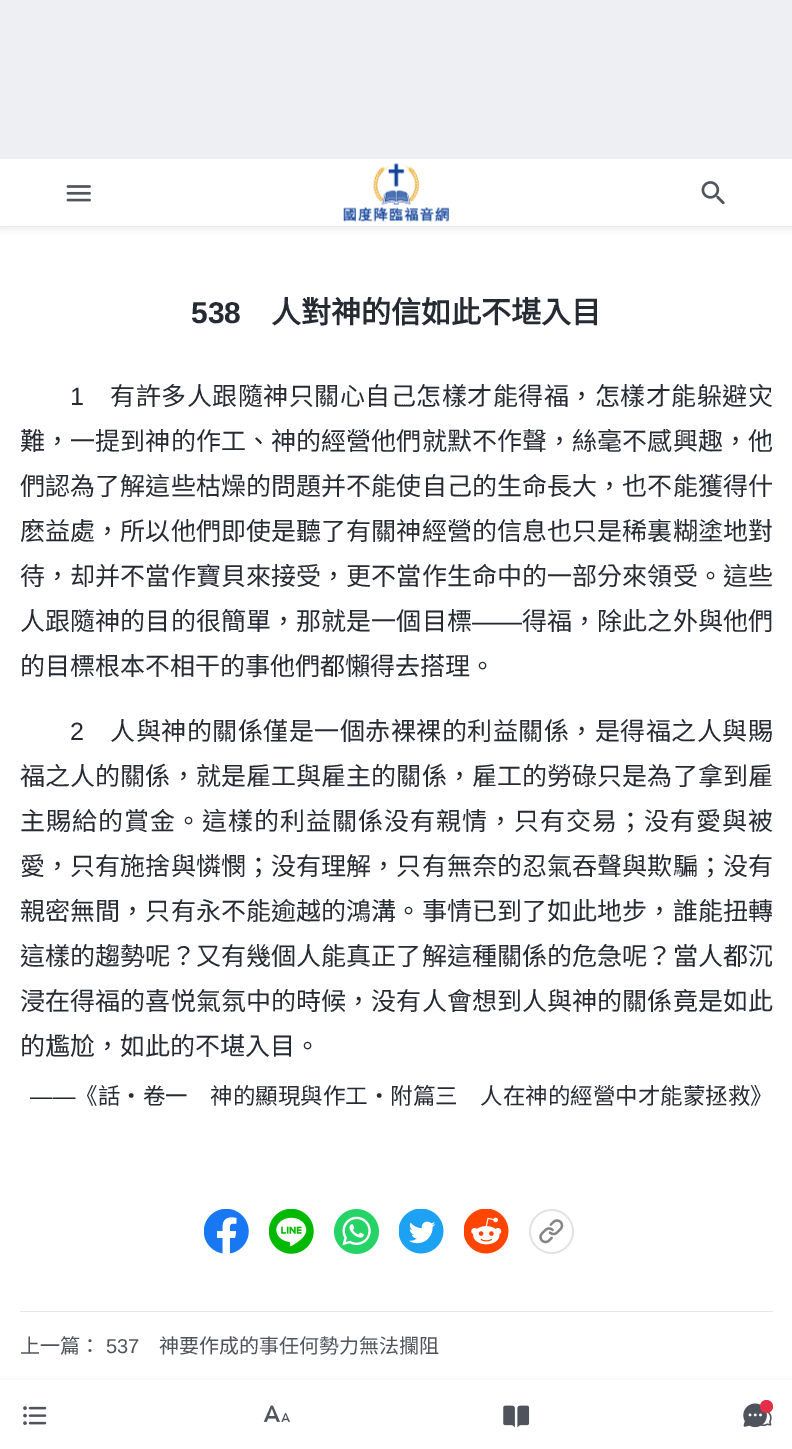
%!PS-Adobe-3.0
%%BoundingBox: 0 0 792 1449
%%LanguageLevel: 3
%%Pages: 1
%%EndComments
%%BeginProlog
/setink { 3 { 255 div 3 1 roll } repeat setrgbcolor } def
/usefont { [ exch dup neg 0 0 3 -1 roll 0 0 ] selectfont } def
/drawtext { setink usefont moveto show } def
/fillbox { setink rectfill } def
/setalpha { dup .setfillconstantalpha .setstrokeconstantalpha } def
/disc { newpath 0 360 arc closepath } def
/rrect { 5 dict begin { /r /h /w /y /x } { exch def } forall
  x r add y moveto x w add y 2 copy h add r arct x w add y h add x 1 index r arct
  x y h add x y r arct x y 2 copy exch w add exch r arct closepath end } def
/softshadow { 12 dict begin { /a /b /q /h /w /y /x } { exch def } forall gsave /was 0 def
  9 -2 -9 { dup b mul 4 div /e exch def 1 sub .425 mul 2.718 exch exp 1 add a .99 .min exch div /now exch def
    1 1 now sub 1 was sub div sub setalpha /was now def
    w h .min e 2 mul add 0 gt { x e sub y e sub w e 2 mul add h e 2 mul add
      q e add b .6 mul add w h .min 2 div e add .min 0 .max rrect fill } if } for grestore end } def
/drawimage { 5 dict begin { /h /w /y /x /name } { exch def } forall
  gsave x y translate w h scale
  w h 8 [w 0 0 h 0 0] name (r) file false 3 colorimage grestore end } def
%%EndProlog
%%BeginSetup
<< /PageSize [792 1449] /PageUsesTransparency true >> setpagedevice
%%EndSetup
%%Page: 1 1
0 .pushpdf14devicefilter
0 1449 translate 1 -1 scale
4 setmiterlimit
0 0 792 1449 255 255 255 fillbox
0 0 0 setink
0 160 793 68 0 4 0.11 softshadow
0 0 792 159 237 239 242 fillbox
0 159 792 67 255 255 255 fillbox
(assets/img1.rgb) 66 185 25 17 drawimage
(assets/img2.rgb) 343 163 106 59 drawimage
(assets/img3.rgb) 701 181 24 24 drawimage
(538) 191 323 /LiberationSans-Bold 30 38 43 51 drawtext
(人對神的信如此不堪入目) 271 323 /NotoSansCJKTC-Bold 30 38 43 51 drawtext
/LiberationSans-Regular 25 usefont
70 405 moveto 0.5 0 (1) ashow
/NotoSansCJKTC-Regular 25 usefont
110 405 moveto 0.5 0 (有許多人跟隨神只關心自己怎樣才能得福，怎樣才能躲避灾) ashow
20 450 moveto 0.1 0 (難，一提到神的作工、神的經營他們就默不作聲，絲毫不感興趣，他) ashow
20 495 moveto 0.1 0 (們認為了解這些枯燥的問題并不能使自己的生命長大，也不能獲得什) ashow
20 540 moveto 0.1 0 (麽益處，所以他們即使是聽了有關神經營的信息也只是稀裏糊塗地對) ashow
20 585 moveto 0.1 0 (待，却并不當作寶貝來接受，更不當作生命中的一部分來領受。這些) ashow
20 630 moveto 0.1 0 (人跟隨神的目的很簡單，那就是一個目標) ashow
/LiberationSans-Regular 25 usefont
472 630 moveto 0.1 0 (——) ashow
/NotoSansCJKTC-Regular 25 usefont
522 630 moveto 0.1 0 (得福，除此之外與他們) ashow
(的目標根本不相干的事他們都懶得去搭理。) 20 675 /NotoSansCJKTC-Regular 25 38 43 51 drawtext
/LiberationSans-Regular 25 usefont
70 740 moveto 0.5 0 (2) ashow
/NotoSansCJKTC-Regular 25 usefont
110 740 moveto 0.5 0 (人與神的關係僅是一個赤裸裸的利益關係，是得福之人與賜) ashow
20 785 moveto 0.1 0 (福之人的關係，就是雇工與雇主的關係，雇工的勞碌只是為了拿到雇) ashow
20 830 moveto 1 0 (主賜給的賞金。這樣的利益關係没有親情，只有交易；没有愛與被) ashow
20 875 moveto 0.1 0 (愛，只有施捨與憐憫；没有理解，只有無奈的忍氣吞聲與欺騙；没有) ashow
20 920 moveto 0.1 0 (親密無間，只有永不能逾越的鴻溝。事情已到了如此地步，誰能扭轉) ashow
20 965 moveto 0.1 0 (這樣的趨勢呢？又有幾個人能真正了解這種關係的危急呢？當人都沉) ashow
20 1010 moveto 0.1 0 (浸在得福的喜悦氣氛中的時候，没有人會想到人與神的關係竟是如此) ashow
(的尷尬，如此的不堪入目。) 20 1055 /NotoSansCJKTC-Regular 25 38 43 51 drawtext
(——) 30 1104 /LiberationSans-Regular 22.5 38 43 51 drawtext
(《話・卷一　神的顯現與作工・附篇三　人在神的經營中才能蒙拯救》) 75 1104 /NotoSansCJKTC-Regular 22.5 38 43 51 drawtext
(assets/img4.rgb) 204 1209 45 45 drawimage
(assets/img5.rgb) 269 1209 45 45 drawimage
(assets/img6.rgb) 334 1209 45 45 drawimage
(assets/img7.rgb) 399 1209 45 45 drawimage
(assets/img8.rgb) 464 1209 45 45 drawimage
(assets/img9.rgb) 529 1209 45 45 drawimage
20 1311 753 1 230 230 230 fillbox
(上一篇：) 20 1353 /NotoSansCJKTC-Regular 20 78 83 92 drawtext
(537) 106 1353 /LiberationSans-Regular 20 78 83 92 drawtext
(神要作成的事任何勢力無法攔阻) 159 1353 /NotoSansCJKTC-Regular 20 78 83 92 drawtext
0 0 0 setink
0 1384 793 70 0 4 0.16 softshadow
0 1380 792 69 255 255 255 fillbox
(assets/img10.rgb) 23 1406 24 19 drawimage
(assets/img11.rgb) 263 1405 27 17 drawimage
(assets/img12.rgb) 503 1405 27 23 drawimage
(assets/img13.rgb) 743 1403 29 25 drawimage
229 46 72 setink
766.5 1406.5 6.5 disc fill
.poppdf14devicefilter showpage
%%EOF
